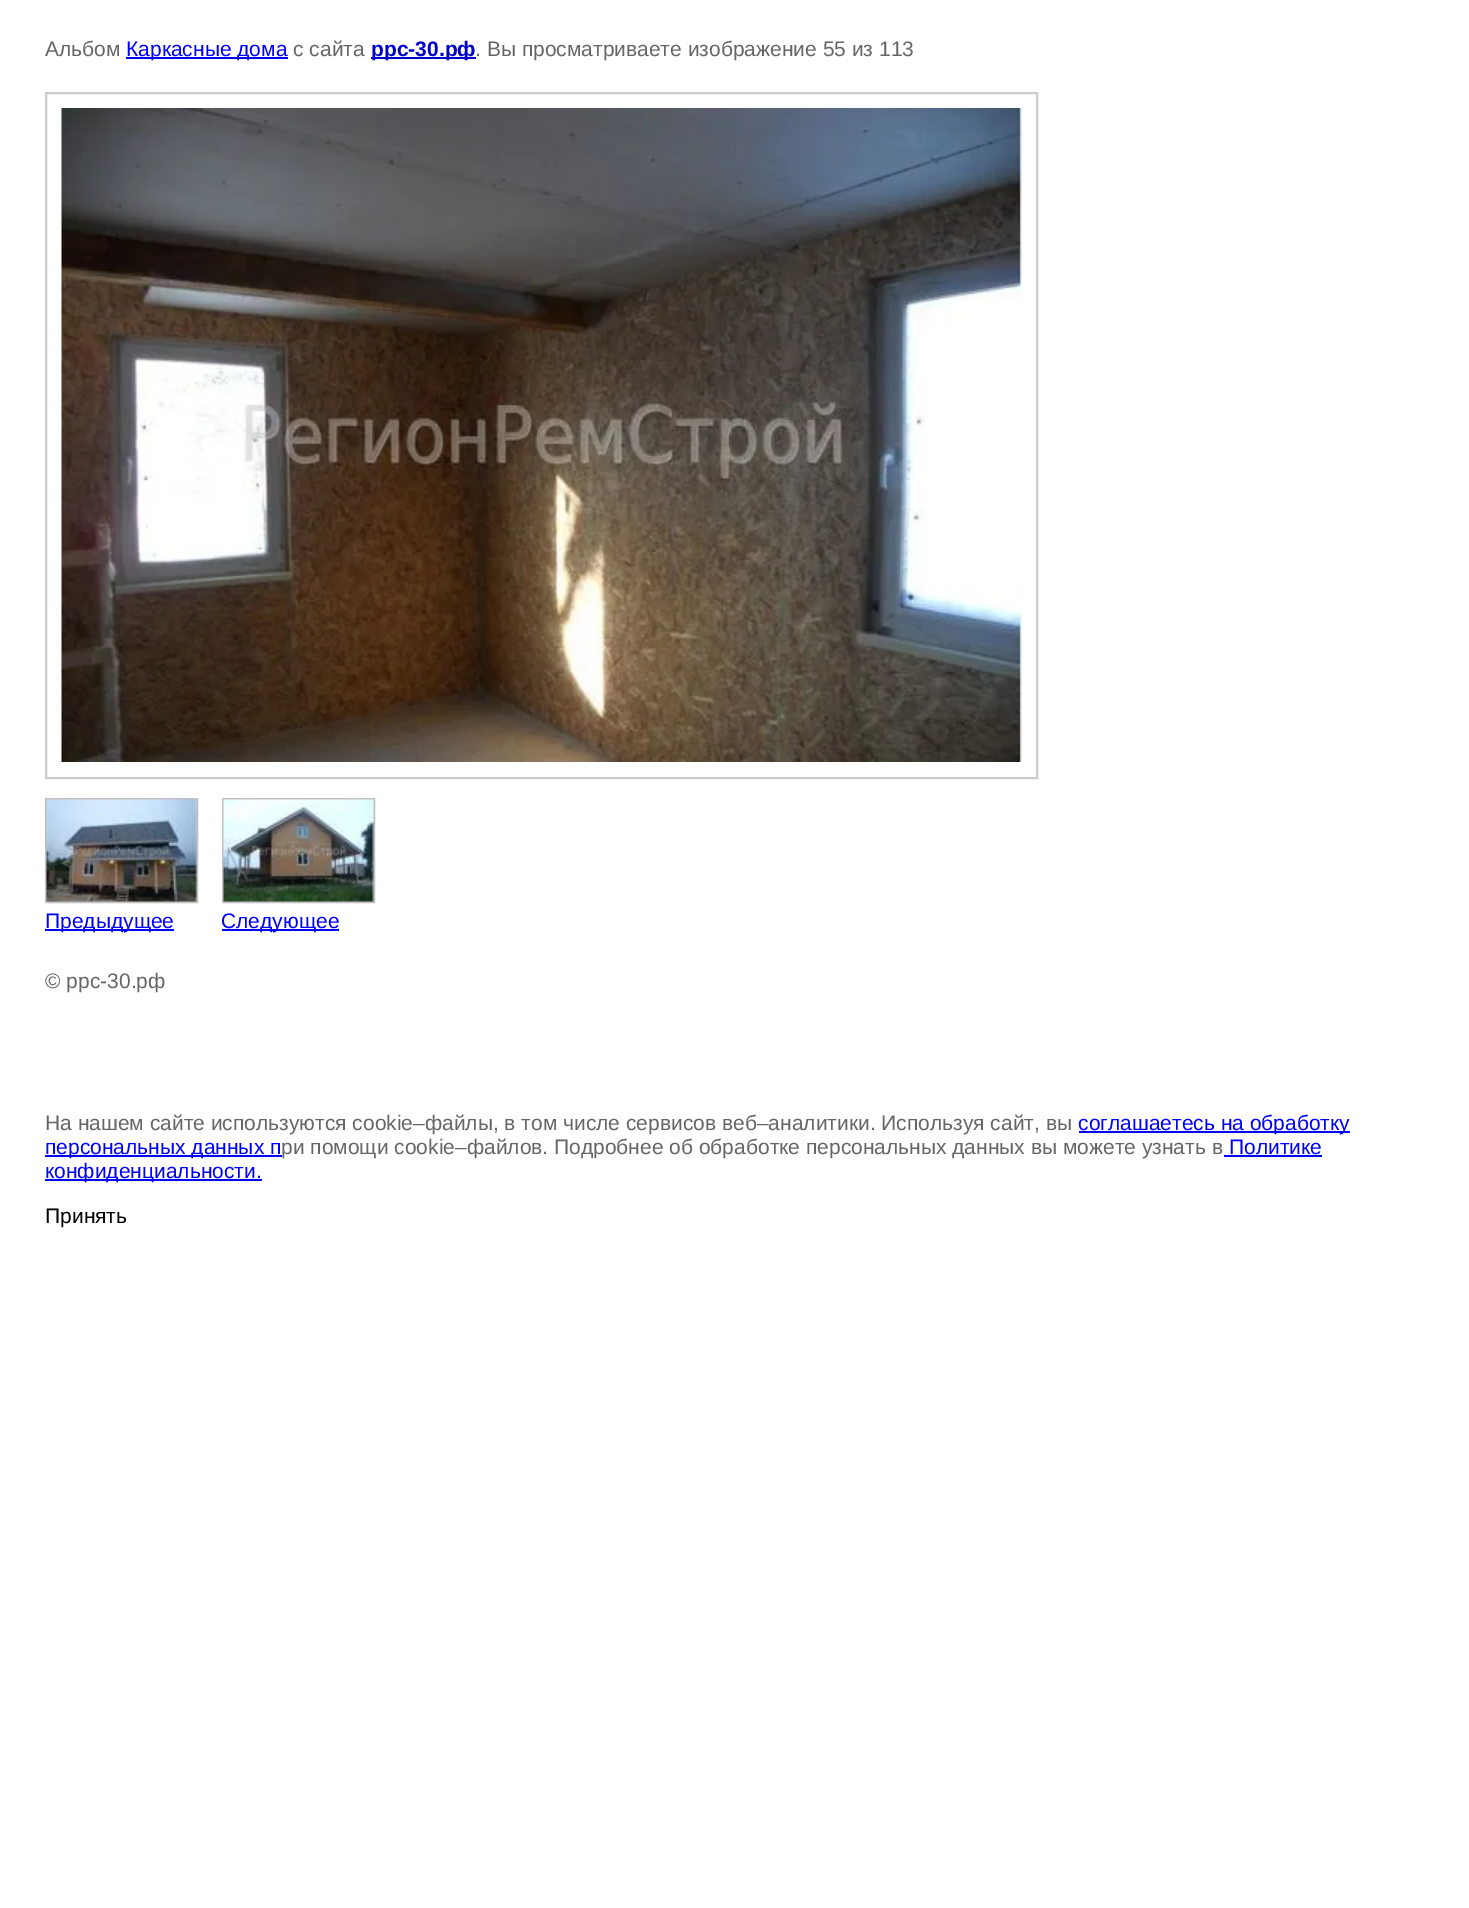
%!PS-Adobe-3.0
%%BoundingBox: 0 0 1469 1908
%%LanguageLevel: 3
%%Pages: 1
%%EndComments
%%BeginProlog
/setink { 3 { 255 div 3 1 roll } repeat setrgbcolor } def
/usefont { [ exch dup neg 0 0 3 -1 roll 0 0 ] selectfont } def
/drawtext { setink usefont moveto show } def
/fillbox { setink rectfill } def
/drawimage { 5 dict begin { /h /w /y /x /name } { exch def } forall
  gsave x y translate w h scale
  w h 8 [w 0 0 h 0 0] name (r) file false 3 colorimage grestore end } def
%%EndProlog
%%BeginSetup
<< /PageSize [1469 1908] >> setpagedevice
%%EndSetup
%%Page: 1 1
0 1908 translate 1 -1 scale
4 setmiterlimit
0 0 1469 1908 255 255 255 fillbox
(Альбом) 45 56 /LiberationSans-Regular 21 102 102 102 drawtext
126 57 162 2 0 0 255 fillbox
(Каркасные дома) 126 56 /LiberationSans-Regular 21 0 0 255 drawtext
(с сайта) 293 56 /LiberationSans-Regular 21 102 102 102 drawtext
371 57 105 2 0 0 204 fillbox
(ррс-30.рф) 371 56 /LiberationSans-Bold 21 0 0 204 drawtext
(. Вы просматриваете изображение 55 из 113) 475 56 /LiberationSans-Regular 21 102 102 102 drawtext
204 204 204 setink
2 setlinewidth
46 93 991 685 rectstroke
(assets/img1.rgb) 61 108 961 654 drawimage
192 192 192 setink
46 799 151 103 rectstroke
(assets/img2.rgb) 46 799 151 103 drawimage
45 929 129 2 0 0 255 fillbox
(Предыдущее) 45 928 /LiberationSans-Regular 21 0 0 255 drawtext
192 192 192 setink
223 799 151 103 rectstroke
(assets/img3.rgb) 223 799 151 103 drawimage
222 929 117 2 0 0 255 fillbox
(Следующее) 221 928 /LiberationSans-Regular 21 0 0 255 drawtext
(© ррс-30.рф) 45 988 /LiberationSans-Regular 21 102 102 102 drawtext
(На нашем сайте используются cookie–файлы, в том числе сервисов веб–аналитики. Используя сайт, вы) 45 1130 /LiberationSans-Regular 21 102 102 102 drawtext
1079 1131 271 2 0 0 255 fillbox
(соглашаетесь на обработку) 1078 1130 /LiberationSans-Regular 21 0 0 255 drawtext
45 1155 237 2 0 0 255 fillbox
(персональных данных п) 45 1154 /LiberationSans-Regular 21 0 0 255 drawtext
(ри помощи cookie–файлов. Подробнее об обработке персональных данных вы можете узнать в) 281 1154 /LiberationSans-Regular 21 102 102 102 drawtext
(Политике) 1229 1154 /LiberationSans-Regular 21 0 0 255 drawtext
1224 1155 98 2 0 0 255 fillbox
45 1179 217 2 0 0 255 fillbox
(конфиденциальности.) 45 1178 /LiberationSans-Regular 21 0 0 255 drawtext
(Принять) 45 1223 /LiberationSans-Regular 21 0 0 0 drawtext
showpage
%%EOF
